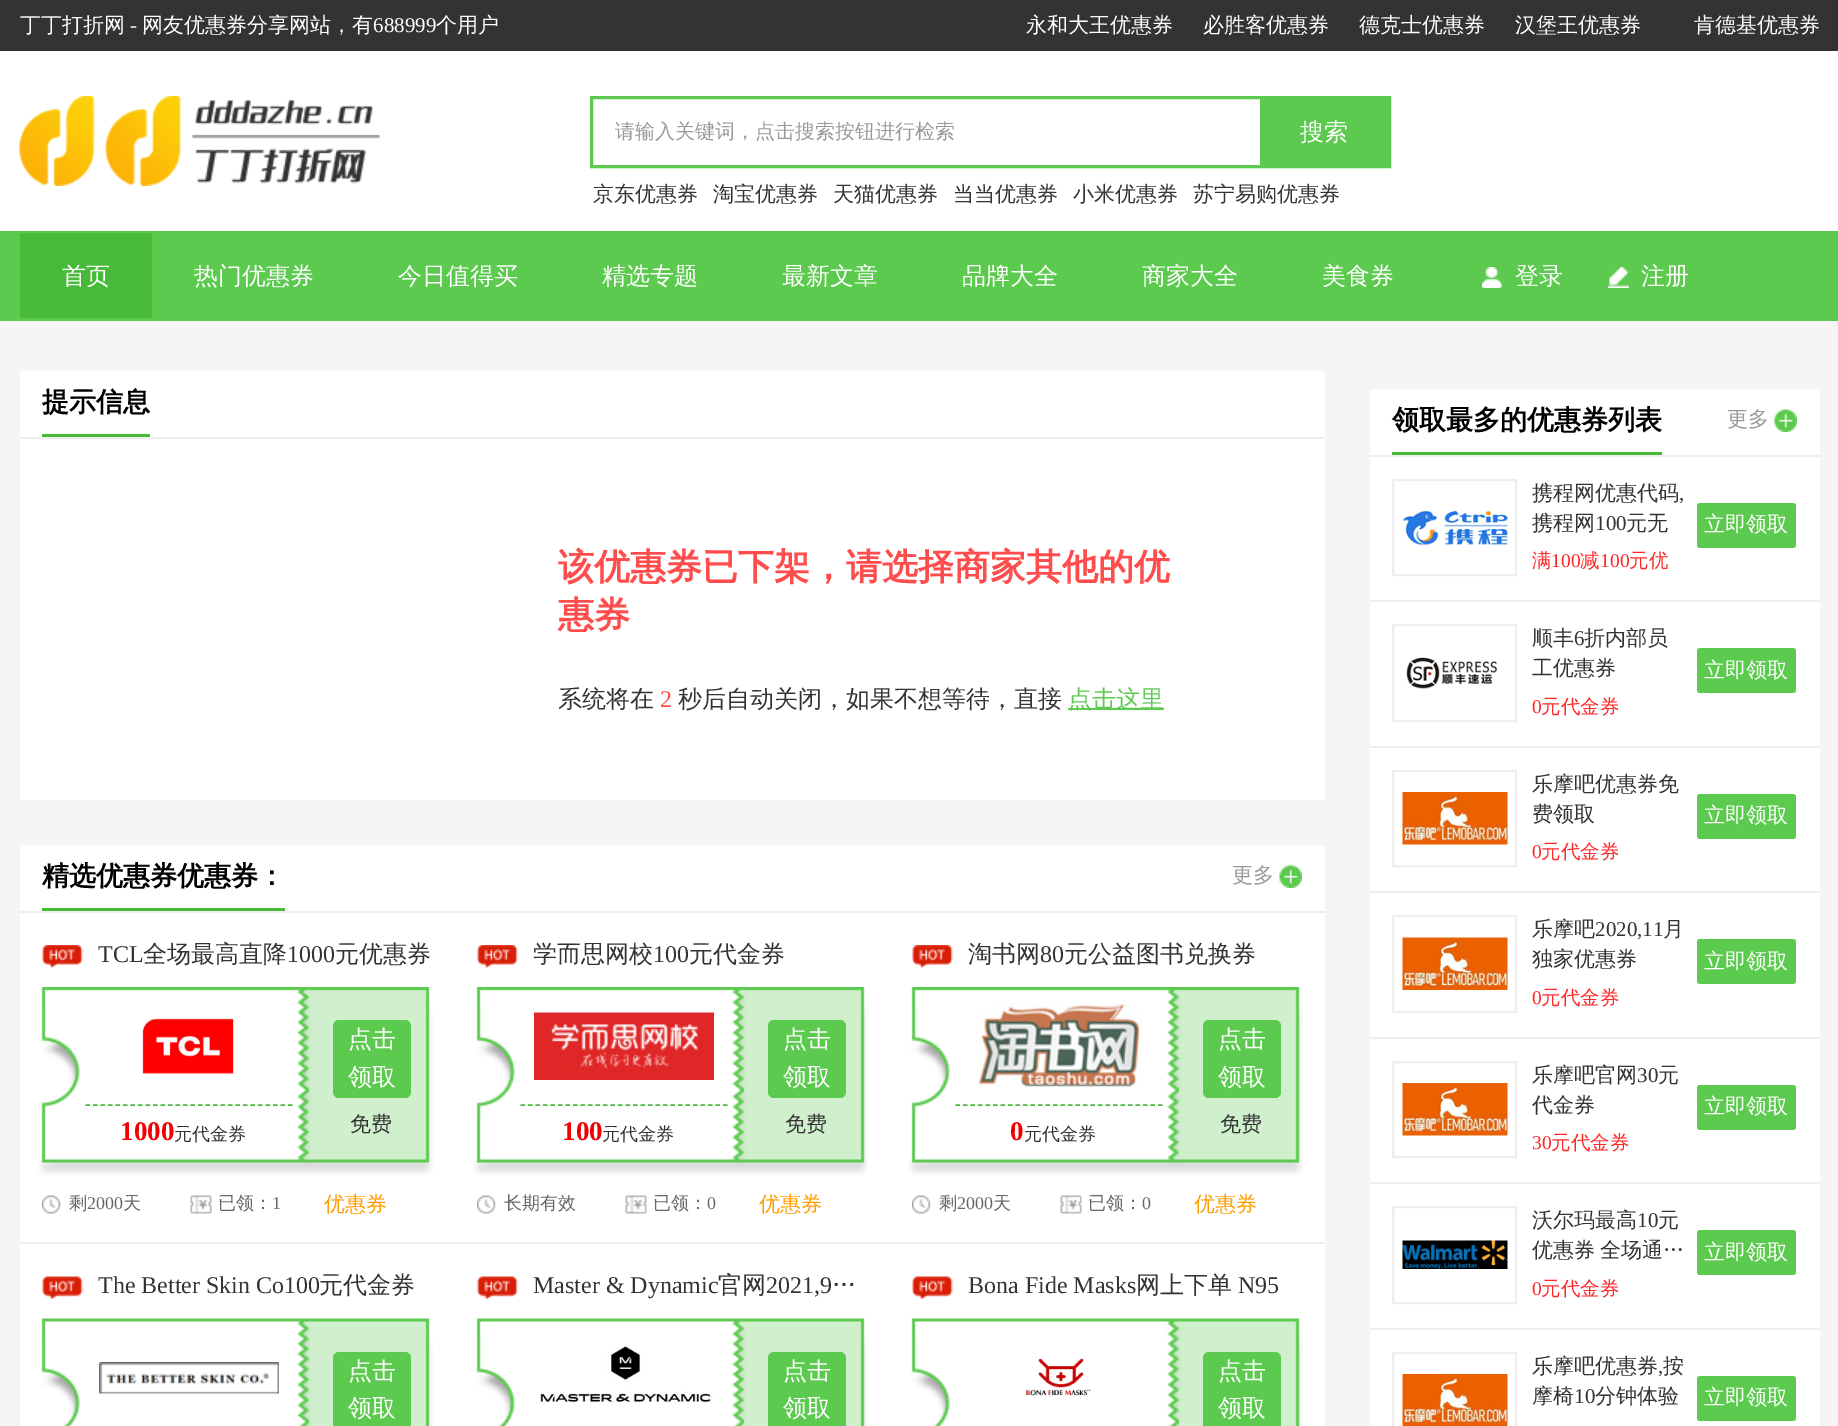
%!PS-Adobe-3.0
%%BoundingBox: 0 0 1838 1426
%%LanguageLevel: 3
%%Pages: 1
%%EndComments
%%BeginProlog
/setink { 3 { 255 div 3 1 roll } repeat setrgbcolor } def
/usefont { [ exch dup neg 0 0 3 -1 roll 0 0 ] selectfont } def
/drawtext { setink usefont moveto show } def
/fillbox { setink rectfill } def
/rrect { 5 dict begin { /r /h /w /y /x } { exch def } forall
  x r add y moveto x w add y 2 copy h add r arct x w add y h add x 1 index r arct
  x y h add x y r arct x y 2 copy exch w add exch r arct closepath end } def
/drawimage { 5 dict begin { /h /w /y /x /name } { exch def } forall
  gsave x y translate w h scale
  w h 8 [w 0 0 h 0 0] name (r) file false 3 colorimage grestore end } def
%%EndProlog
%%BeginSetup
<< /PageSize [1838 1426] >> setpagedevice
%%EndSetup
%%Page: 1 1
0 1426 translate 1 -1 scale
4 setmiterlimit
0 0 1838 1426 255 255 255 fillbox
0 0 1838 51 51 51 51 fillbox
(丁丁打折网) 20 32 /WenQuanYiZenHei-Medium 21 255 255 255 drawtext
(-) 130 32 /LiberationSerif-Regular 21 255 255 255 drawtext
(网友优惠券分享网站，有) 142 32 /WenQuanYiZenHei-Medium 21 255 255 255 drawtext
(688999) 373 32 /LiberationSerif-Regular 21 255 255 255 drawtext
(个用户) 436 32 /WenQuanYiZenHei-Medium 21 255 255 255 drawtext
(永和大王优惠券) 1026 32 /WenQuanYiZenHei-Medium 21 255 255 255 drawtext
(必胜客优惠券) 1203 32 /WenQuanYiZenHei-Medium 21 255 255 255 drawtext
(德克士优惠券) 1359 32 /WenQuanYiZenHei-Medium 21 255 255 255 drawtext
(汉堡王优惠券) 1515 32 /WenQuanYiZenHei-Medium 21 255 255 255 drawtext
(肯德基优惠券) 1694 32 /WenQuanYiZenHei-Medium 21 255 255 255 drawtext
(assets/img1.rgb) 19 96 361 90 drawimage
92 202 79 setink
3 setlinewidth
591.5 97.5 798 69 rectstroke
(请输入关键词，点击搜索按钮进行检索) 615 138 /WenQuanYiZenHei-Medium 20 153 153 153 drawtext
1260 99 128 66 92 202 79 fillbox
(搜索) 1300 140 /WenQuanYiZenHei-Medium 24 255 255 255 drawtext
(京东优惠券) 593 201 /WenQuanYiZenHei-Medium 21 51 51 51 drawtext
(淘宝优惠券) 713 201 /WenQuanYiZenHei-Medium 21 51 51 51 drawtext
(天猫优惠券) 833 201 /WenQuanYiZenHei-Medium 21 51 51 51 drawtext
(当当优惠券) 953 201 /WenQuanYiZenHei-Medium 21 51 51 51 drawtext
(小米优惠券) 1073 201 /WenQuanYiZenHei-Medium 21 51 51 51 drawtext
(苏宁易购优惠券) 1193 201 /WenQuanYiZenHei-Medium 21 51 51 51 drawtext
0 231 1838 90 92 202 79 fillbox
20 233 132 85 71 186 58 fillbox
(首页) 62 284 /WenQuanYiZenHei-Medium 24 255 255 255 drawtext
(热门优惠券) 194 284 /WenQuanYiZenHei-Medium 24 255 255 255 drawtext
(今日值得买) 398 284 /WenQuanYiZenHei-Medium 24 255 255 255 drawtext
(精选专题) 602 284 /WenQuanYiZenHei-Medium 24 255 255 255 drawtext
(最新文章) 782 284 /WenQuanYiZenHei-Medium 24 255 255 255 drawtext
(品牌大全) 962 284 /WenQuanYiZenHei-Medium 24 255 255 255 drawtext
(商家大全) 1142 284 /WenQuanYiZenHei-Medium 24 255 255 255 drawtext
(美食券) 1322 284 /WenQuanYiZenHei-Medium 24 255 255 255 drawtext
(assets/img2.rgb) 1482 267 20 21 drawimage
(登录) 1515 284 /WenQuanYiZenHei-Medium 24 255 255 255 drawtext
(assets/img3.rgb) 1608 267 21 21 drawimage
(注册) 1641 284 /WenQuanYiZenHei-Medium 24 255 255 255 drawtext
0 321 1838 1105 245 245 245 fillbox
255 255 255 setink
20 371 1305 429 3 rrect fill
20 437 1305 2 238 238 238 fillbox
42 434 108 3 71 186 58 fillbox
(提示信息) 42 411 /WenQuanYiZenHei-Bold 27 0 0 0 drawtext
(该优惠券已下架，请选择商家其他的优) 558 579 /WenQuanYiZenHei-Bold 36 255 77 78 drawtext
(惠券) 558 627 /WenQuanYiZenHei-Bold 36 255 77 78 drawtext
(系统将在) 558 707 /WenQuanYiZenHei-Medium 24 51 51 51 drawtext
(2) 660 707 /LiberationSerif-Regular 24 255 77 78 drawtext
(秒后自动关闭，如果不想等待，直接) 678 707 /WenQuanYiZenHei-Medium 24 51 51 51 drawtext
1068 708 96 2 92 202 79 fillbox
(点击这里) 1068 707 /WenQuanYiZenHei-Medium 24 92 202 79 drawtext
255 255 255 setink
20 845 1305 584 3 rrect fill
20 911 1305 2 238 238 238 fillbox
42 908 243 3 71 186 58 fillbox
(精选优惠券优惠券：) 42 885 /WenQuanYiZenHei-Bold 27 0 0 0 drawtext
(更多) 1232 882 /WenQuanYiZenHei-Medium 21 153 153 153 drawtext
(assets/img4.rgb) 1279 865 23 23 drawimage
20 1242 1305 2 238 238 238 fillbox
(assets/img5.rgb) 42 945 41 23 drawimage
(TCL) 98 962 /LiberationSerif-Regular 24 51 51 51 drawtext
(全场最高直降) 143 962 /WenQuanYiZenHei-Medium 24 51 51 51 drawtext
(1000) 287 962 /LiberationSerif-Regular 24 51 51 51 drawtext
(元优惠券) 335 962 /WenQuanYiZenHei-Medium 24 51 51 51 drawtext
(assets/img6.rgb) 38 987 395 189 drawimage
(assets/img7.rgb) 142 1018 92 57 drawimage
71 186 58 setink
1.5 setlinewidth
[4.5 3] 0 setdash
85.5 1105 moveto 292.5 1105 lineto stroke
(1000) 120 1140 /LiberationSerif-Bold 27 240 0 0 drawtext
(元代金券) 174 1140 /WenQuanYiZenHei-Medium 18 51 51 51 drawtext
92 202 79 setink
333 1020 78 78 6 rrect fill
(点击) 348 1047 /WenQuanYiZenHei-Medium 24 255 255 255 drawtext
(领取) 348 1085 /WenQuanYiZenHei-Medium 24 255 255 255 drawtext
(免费) 350 1131 /WenQuanYiZenHei-Medium 21 51 51 51 drawtext
(assets/img8.rgb) 42 1195 19 19 drawimage
(剩) 69 1209 /WenQuanYiZenHei-Medium 18 102 102 102 drawtext
(2000) 87 1209 /LiberationSerif-Regular 18 102 102 102 drawtext
(天) 123 1209 /WenQuanYiZenHei-Medium 18 102 102 102 drawtext
(assets/img9.rgb) 190 1195 22 19 drawimage
(已领：) 218 1209 /WenQuanYiZenHei-Medium 18 102 102 102 drawtext
(1) 272 1209 /LiberationSerif-Regular 18 102 102 102 drawtext
(优惠券) 324 1211 /WenQuanYiZenHei-Medium 21 255 156 0 drawtext
(assets/img10.rgb) 477 945 41 23 drawimage
(学而思网校) 533 962 /WenQuanYiZenHei-Medium 24 51 51 51 drawtext
(100) 653 962 /LiberationSerif-Regular 24 51 51 51 drawtext
(元代金券) 689 962 /WenQuanYiZenHei-Medium 24 51 51 51 drawtext
(assets/img11.rgb) 473 987 395 189 drawimage
(assets/img12.rgb) 534 1012 180 68 drawimage
71 186 58 setink
520.5 1105 moveto 727.5 1105 lineto stroke
(100) 562 1140 /LiberationSerif-Bold 27 240 0 0 drawtext
(元代金券) 602 1140 /WenQuanYiZenHei-Medium 18 51 51 51 drawtext
92 202 79 setink
768 1020 78 78 6 rrect fill
(点击) 783 1047 /WenQuanYiZenHei-Medium 24 255 255 255 drawtext
(领取) 783 1085 /WenQuanYiZenHei-Medium 24 255 255 255 drawtext
(免费) 785 1131 /WenQuanYiZenHei-Medium 21 51 51 51 drawtext
(assets/img13.rgb) 477 1195 19 19 drawimage
(长期有效) 504 1209 /WenQuanYiZenHei-Medium 18 102 102 102 drawtext
(assets/img14.rgb) 625 1195 22 19 drawimage
(已领：) 653 1209 /WenQuanYiZenHei-Medium 18 102 102 102 drawtext
(0) 707 1209 /LiberationSerif-Regular 18 102 102 102 drawtext
(优惠券) 759 1211 /WenQuanYiZenHei-Medium 21 255 156 0 drawtext
(assets/img5.rgb) 912 945 41 23 drawimage
(淘书网) 968 962 /WenQuanYiZenHei-Medium 24 51 51 51 drawtext
(80) 1040 962 /LiberationSerif-Regular 24 51 51 51 drawtext
(元公益图书兑换券) 1064 962 /WenQuanYiZenHei-Medium 24 51 51 51 drawtext
(assets/img6.rgb) 908 987 395 189 drawimage
(assets/img15.rgb) 975 1003 168 85 drawimage
71 186 58 setink
955.5 1105 moveto 1162.5 1105 lineto stroke
(0) 1010 1140 /LiberationSerif-Bold 27 240 0 0 drawtext
(元代金券) 1024 1140 /WenQuanYiZenHei-Medium 18 51 51 51 drawtext
92 202 79 setink
1203 1020 78 78 6 rrect fill
(点击) 1218 1047 /WenQuanYiZenHei-Medium 24 255 255 255 drawtext
(领取) 1218 1085 /WenQuanYiZenHei-Medium 24 255 255 255 drawtext
(免费) 1220 1131 /WenQuanYiZenHei-Medium 21 51 51 51 drawtext
(assets/img8.rgb) 912 1195 19 19 drawimage
(剩) 939 1209 /WenQuanYiZenHei-Medium 18 102 102 102 drawtext
(2000) 957 1209 /LiberationSerif-Regular 18 102 102 102 drawtext
(天) 993 1209 /WenQuanYiZenHei-Medium 18 102 102 102 drawtext
(assets/img14.rgb) 1060 1195 22 19 drawimage
(已领：) 1088 1209 /WenQuanYiZenHei-Medium 18 102 102 102 drawtext
(0) 1142 1209 /LiberationSerif-Regular 18 102 102 102 drawtext
(优惠券) 1194 1211 /WenQuanYiZenHei-Medium 21 255 156 0 drawtext
(assets/img16.rgb) 42 1276 41 23 drawimage
(The Better Skin Co100) 98 1293 /LiberationSerif-Regular 24 51 51 51 drawtext
(元代金券) 319 1293 /WenQuanYiZenHei-Medium 24 51 51 51 drawtext
(assets/img17.rgb) 41 1318 392 108 drawimage
(assets/img18.rgb) 99 1362 180 32 drawimage
92 202 79 setink
333 1352 78 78 6 rrect fill
(点击) 348 1379 /WenQuanYiZenHei-Medium 24 255 255 255 drawtext
(领取) 348 1416 /WenQuanYiZenHei-Medium 24 255 255 255 drawtext
(assets/img19.rgb) 477 1276 41 23 drawimage
(Master & Dynamic) 533 1293 /LiberationSerif-Regular 24 51 51 51 drawtext
(官网) 718 1293 /WenQuanYiZenHei-Medium 24 51 51 51 drawtext
(2021,9) 766 1293 /LiberationSerif-Regular 24 51 51 51 drawtext
(…) 832 1293 /WenQuanYiZenHei-Medium 24 51 51 51 drawtext
(assets/img20.rgb) 476 1318 392 108 drawimage
(assets/img21.rgb) 540 1344 173 59 drawimage
92 202 79 setink
768 1352 78 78 6 rrect fill
(点击) 783 1379 /WenQuanYiZenHei-Medium 24 255 255 255 drawtext
(领取) 783 1416 /WenQuanYiZenHei-Medium 24 255 255 255 drawtext
(assets/img16.rgb) 912 1276 41 23 drawimage
(Bona Fide Masks) 968 1293 /LiberationSerif-Regular 24 51 51 51 drawtext
(网上下单) 1136 1293 /WenQuanYiZenHei-Medium 24 51 51 51 drawtext
(N95) 1238 1293 /LiberationSerif-Regular 24 51 51 51 drawtext
(assets/img17.rgb) 911 1318 392 108 drawimage
(assets/img22.rgb) 1026 1358 65 38 drawimage
92 202 79 setink
1203 1352 78 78 6 rrect fill
(点击) 1218 1379 /WenQuanYiZenHei-Medium 24 255 255 255 drawtext
(领取) 1218 1416 /WenQuanYiZenHei-Medium 24 255 255 255 drawtext
1370 389 450 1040 3 rrect fill
1370 455 450 2 238 238 238 fillbox
1392 452 270 3 71 186 58 fillbox
(领取最多的优惠券列表) 1392 429 /WenQuanYiZenHei-Bold 27 0 0 0 drawtext
(更多) 1727 426 /WenQuanYiZenHei-Medium 21 153 153 153 drawtext
(assets/img23.rgb) 1774 409 23 23 drawimage
1370 600 450 2 238 238 238 fillbox
2 setlinewidth
[] 0 setdash
1393 480 123 95 rectstroke
(assets/img24.rgb) 1403 510 105 35 drawimage
(携程网优惠代码) 1532 500 /WenQuanYiZenHei-Medium 21 51 51 51 drawtext
(,) 1679 500 /LiberationSerif-Regular 21 51 51 51 drawtext
(携程网) 1532 530 /WenQuanYiZenHei-Medium 21 51 51 51 drawtext
(100) 1595 530 /LiberationSerif-Regular 21 51 51 51 drawtext
(元无) 1626 530 /WenQuanYiZenHei-Medium 21 51 51 51 drawtext
(满) 1532 567 /WenQuanYiZenHei-Medium 19.5 255 39 39 drawtext
(100) 1551 567 /LiberationSerif-Regular 19.5 255 39 39 drawtext
(减) 1580 567 /WenQuanYiZenHei-Medium 19.5 255 39 39 drawtext
(100) 1600 567 /LiberationSerif-Regular 19.5 255 39 39 drawtext
(元优) 1629 567 /WenQuanYiZenHei-Medium 19.5 255 39 39 drawtext
92 202 79 setink
1697 503 99 45 3 rrect fill
(立即领取) 1704 531 /WenQuanYiZenHei-Medium 21 255 255 255 drawtext
1370 746 450 2 238 238 238 fillbox
1393 625 123 96 rectstroke
(assets/img25.rgb) 1406 657 91 32 drawimage
(顺丰) 1532 645 /WenQuanYiZenHei-Medium 21 51 51 51 drawtext
(6) 1574 645 /LiberationSerif-Regular 21 51 51 51 drawtext
(折内部员) 1584 645 /WenQuanYiZenHei-Medium 21 51 51 51 drawtext
(工优惠券) 1532 675 /WenQuanYiZenHei-Medium 21 51 51 51 drawtext
(0) 1532 713 /LiberationSerif-Regular 19.5 255 39 39 drawtext
(元代金券) 1541 713 /WenQuanYiZenHei-Medium 19.5 255 39 39 drawtext
92 202 79 setink
1697 648 99 45 3 rrect fill
(立即领取) 1704 677 /WenQuanYiZenHei-Medium 21 255 255 255 drawtext
1370 891 450 2 238 238 238 fillbox
1393 771 123 95 rectstroke
(assets/img26.rgb) 1402 792 106 53 drawimage
(乐摩吧优惠券免) 1532 791 /WenQuanYiZenHei-Medium 21 51 51 51 drawtext
(费领取) 1532 821 /WenQuanYiZenHei-Medium 21 51 51 51 drawtext
(0) 1532 858 /LiberationSerif-Regular 19.5 255 39 39 drawtext
(元代金券) 1541 858 /WenQuanYiZenHei-Medium 19.5 255 39 39 drawtext
92 202 79 setink
1697 794 99 45 3 rrect fill
(立即领取) 1704 822 /WenQuanYiZenHei-Medium 21 255 255 255 drawtext
1370 1037 450 2 238 238 238 fillbox
1393 916 123 96 rectstroke
(assets/img27.rgb) 1402 937 106 53 drawimage
(乐摩吧) 1532 936 /WenQuanYiZenHei-Medium 21 51 51 51 drawtext
(2020,11) 1595 936 /LiberationSerif-Regular 21 51 51 51 drawtext
(月) 1663 936 /WenQuanYiZenHei-Medium 21 51 51 51 drawtext
(独家优惠券) 1532 966 /WenQuanYiZenHei-Medium 21 51 51 51 drawtext
(0) 1532 1004 /LiberationSerif-Regular 19.5 255 39 39 drawtext
(元代金券) 1541 1004 /WenQuanYiZenHei-Medium 19.5 255 39 39 drawtext
92 202 79 setink
1697 939 99 45 3 rrect fill
(立即领取) 1704 968 /WenQuanYiZenHei-Medium 21 255 255 255 drawtext
1370 1182 450 2 238 238 238 fillbox
1393 1062 123 95 rectstroke
(assets/img26.rgb) 1402 1083 106 53 drawimage
(乐摩吧官网) 1532 1082 /WenQuanYiZenHei-Medium 21 51 51 51 drawtext
(30) 1637 1082 /LiberationSerif-Regular 21 51 51 51 drawtext
(元) 1658 1082 /WenQuanYiZenHei-Medium 21 51 51 51 drawtext
(代金券) 1532 1112 /WenQuanYiZenHei-Medium 21 51 51 51 drawtext
(30) 1532 1149 /LiberationSerif-Regular 19.5 255 39 39 drawtext
(元代金券) 1551 1149 /WenQuanYiZenHei-Medium 19.5 255 39 39 drawtext
92 202 79 setink
1697 1085 99 45 3 rrect fill
(立即领取) 1704 1113 /WenQuanYiZenHei-Medium 21 255 255 255 drawtext
1370 1328 450 2 238 238 238 fillbox
1393 1207 123 96 rectstroke
(assets/img28.rgb) 1402 1240 106 29 drawimage
(沃尔玛最高) 1532 1227 /WenQuanYiZenHei-Medium 21 51 51 51 drawtext
(10) 1637 1227 /LiberationSerif-Regular 21 51 51 51 drawtext
(元) 1658 1227 /WenQuanYiZenHei-Medium 21 51 51 51 drawtext
(优惠券) 1532 1257 /WenQuanYiZenHei-Medium 21 51 51 51 drawtext
(全场通…) 1600 1257 /WenQuanYiZenHei-Medium 21 51 51 51 drawtext
(0) 1532 1295 /LiberationSerif-Regular 19.5 255 39 39 drawtext
(元代金券) 1541 1295 /WenQuanYiZenHei-Medium 19.5 255 39 39 drawtext
92 202 79 setink
1697 1230 99 45 3 rrect fill
(立即领取) 1704 1259 /WenQuanYiZenHei-Medium 21 255 255 255 drawtext
238 238 238 setink
1393 1353 123 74 rectstroke
(assets/img29.rgb) 1402 1374 106 52 drawimage
(乐摩吧优惠券) 1532 1373 /WenQuanYiZenHei-Medium 21 51 51 51 drawtext
(,) 1658 1373 /LiberationSerif-Regular 21 51 51 51 drawtext
(按) 1663 1373 /WenQuanYiZenHei-Medium 21 51 51 51 drawtext
(摩椅) 1532 1403 /WenQuanYiZenHei-Medium 21 51 51 51 drawtext
(10) 1574 1403 /LiberationSerif-Regular 21 51 51 51 drawtext
(分钟体验) 1595 1403 /WenQuanYiZenHei-Medium 21 51 51 51 drawtext
92 202 79 setink
1697 1376 99 45 3 rrect fill
(立即领取) 1704 1404 /WenQuanYiZenHei-Medium 21 255 255 255 drawtext
showpage
%%EOF
